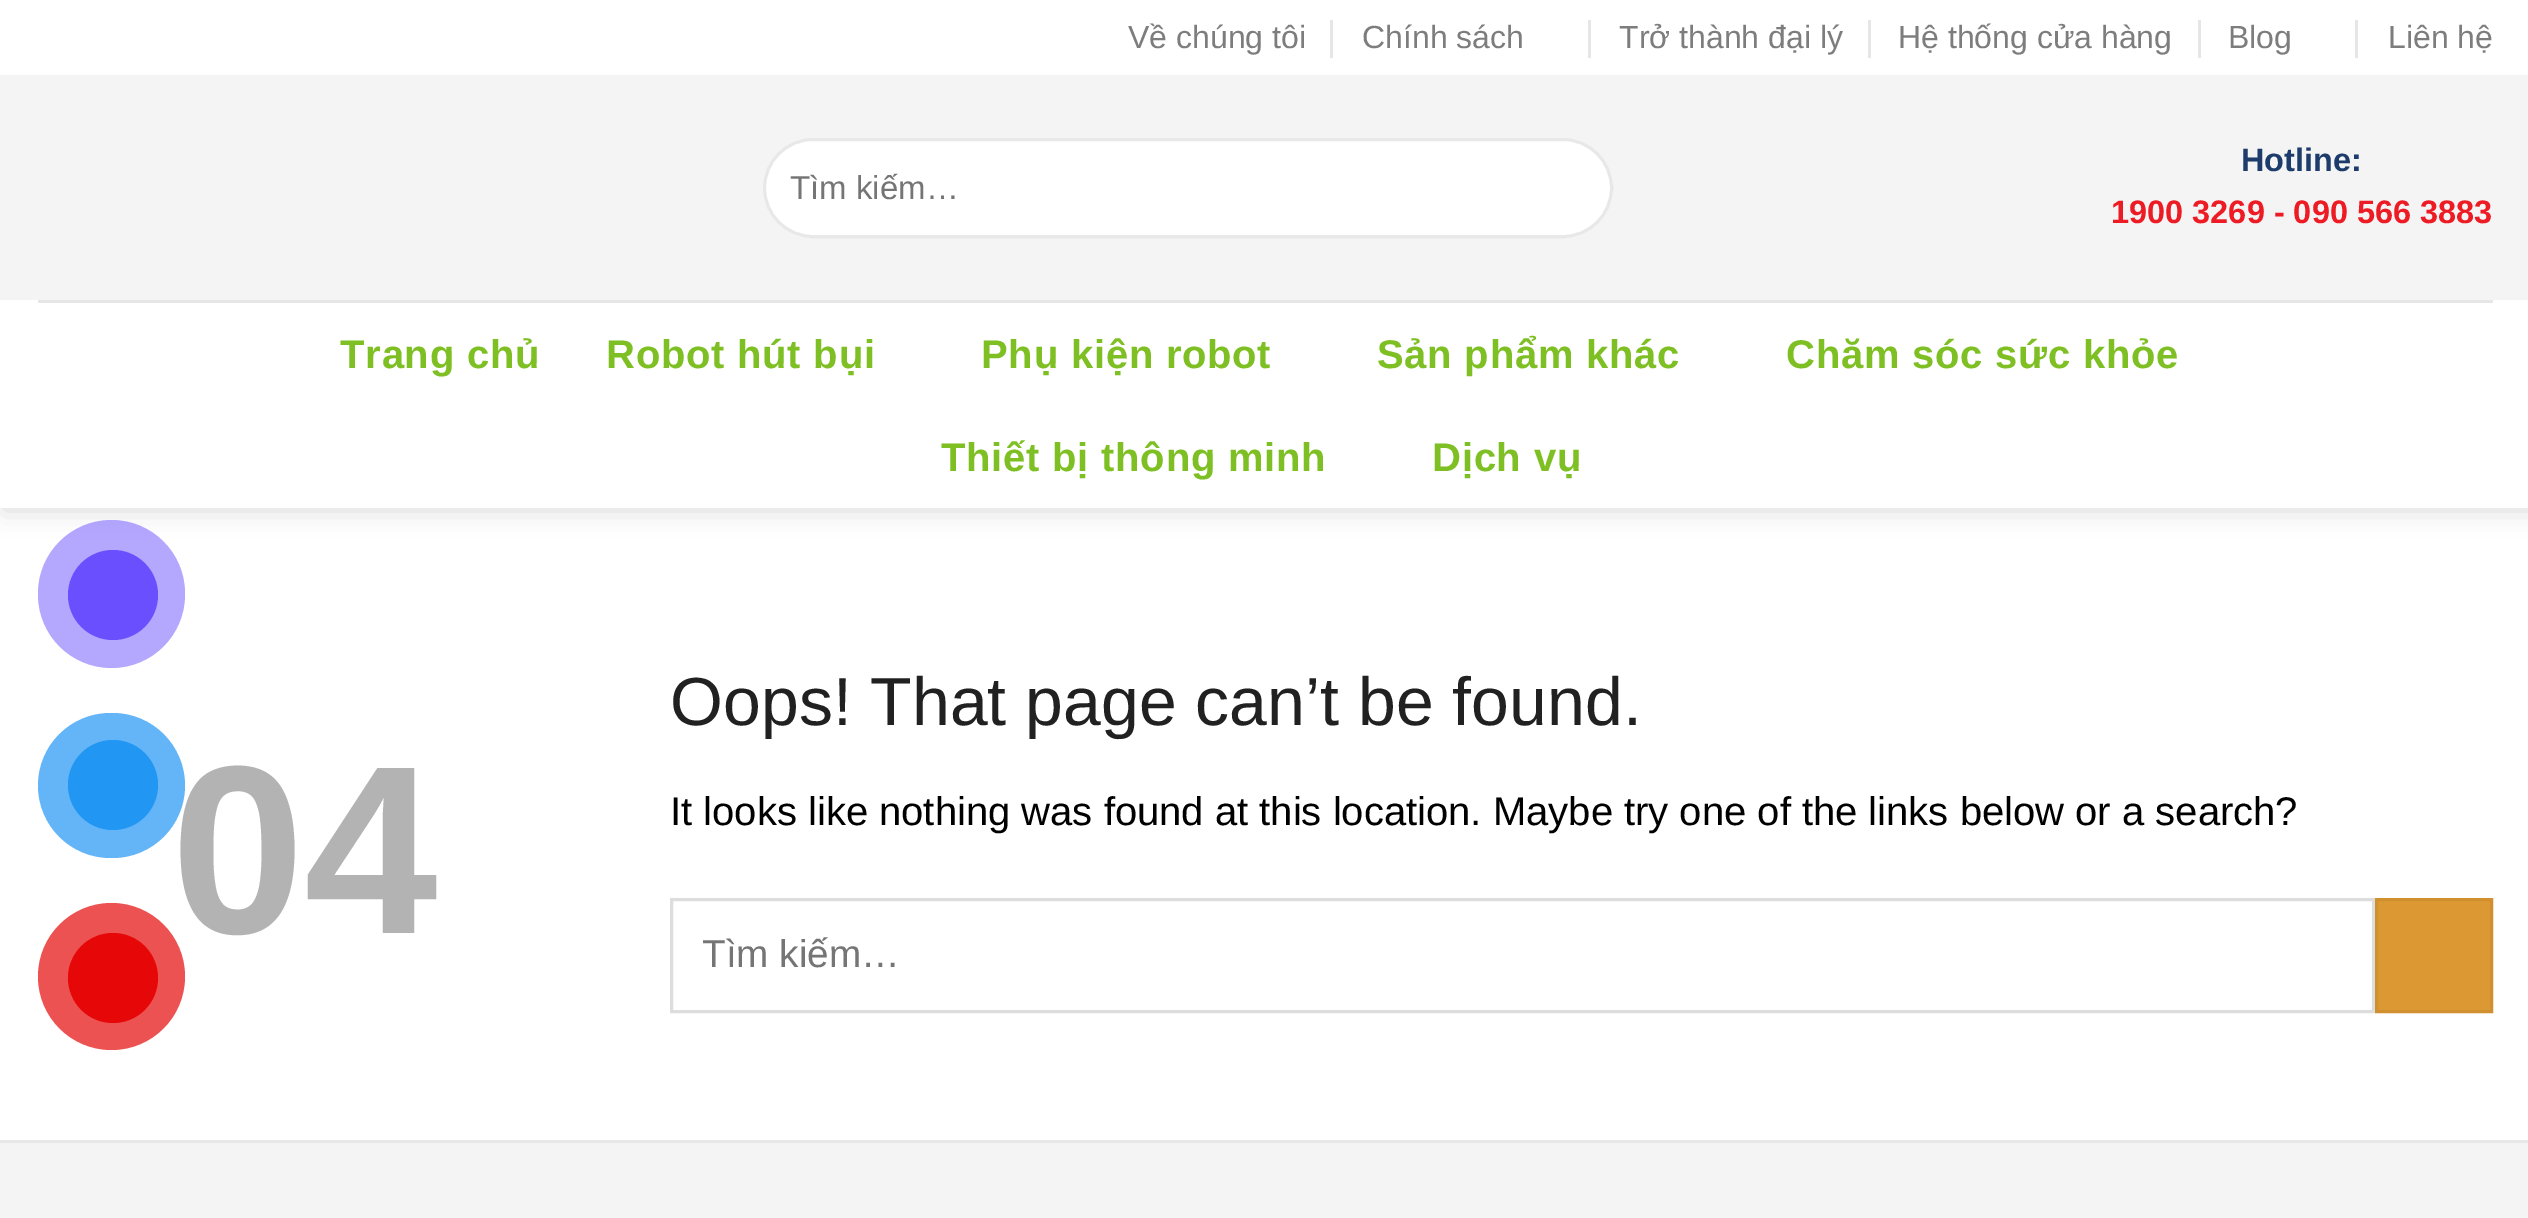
%!PS-Adobe-3.0
%%BoundingBox: 0 0 2528 1218
%%LanguageLevel: 3
%%Pages: 1
%%EndComments
%%BeginProlog
/setink { 3 { 255 div 3 1 roll } repeat setrgbcolor } def
/usefont { [ exch dup neg 0 0 3 -1 roll 0 0 ] selectfont } def
/drawtext { setink usefont moveto show } def
/fillbox { setink rectfill } def
/setalpha { dup .setfillconstantalpha .setstrokeconstantalpha } def
/disc { newpath 0 360 arc closepath } def
/rrect { 5 dict begin { /r /h /w /y /x } { exch def } forall
  x r add y moveto x w add y 2 copy h add r arct x w add y h add x 1 index r arct
  x y h add x y r arct x y 2 copy exch w add exch r arct closepath end } def
/softshadow { 12 dict begin { /a /b /q /h /w /y /x } { exch def } forall gsave /was 0 def
  9 -2 -9 { dup b mul 4 div /e exch def 1 sub .425 mul 2.718 exch exp 1 add a .99 .min exch div /now exch def
    1 1 now sub 1 was sub div sub setalpha /was now def
    w h .min e 2 mul add 0 gt { x e sub y e sub w e 2 mul add h e 2 mul add
      q e add b .6 mul add w h .min 2 div e add .min 0 .max rrect fill } if } for grestore end } def
%%EndProlog
%%BeginSetup
<< /PageSize [2528 1218] /PageUsesTransparency true >> setpagedevice
%%EndSetup
%%Page: 1 1
0 .pushpdf14devicefilter
0 1218 translate 1 -1 scale
4 setmiterlimit
0 0 2528 1218 255 255 255 fillbox
0 0 0 setink
3 3 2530 507 0 12.5 0.15 softshadow
0.5 setalpha
106 79 254 setink
38 520 147 148 73.5 rrect fill
1 setalpha
113 595 45 disc fill
(04) 171 933 /LiberationSans-Bold 240 179 179 179 drawtext
0.7 setalpha
33 150 243 setink
38 713 147 145 72.5 rrect fill
1 setalpha
113 785 45 disc fill
0.7 setalpha
230 8 8 setink
111.5 976.5 73.5 disc fill
1 setalpha
113 978 45 disc fill
0 0 2528 75 255 255 255 fillbox
(Về chúng tôi) 1128 48 /LiberationSans-Regular 32 125 125 125 drawtext
1330 20 3 38 230 230 230 fillbox
(Chính sách) 1362 48 /LiberationSans-Regular 32 125 125 125 drawtext
1588 20 3 38 230 230 230 fillbox
(Trở thành đại lý) 1619 48 /LiberationSans-Regular 32 125 125 125 drawtext
1868 20 3 38 230 230 230 fillbox
(Hệ thống cửa hàng) 1898 48 /LiberationSans-Regular 32 125 125 125 drawtext
2198 20 3 38 230 230 230 fillbox
(Blog) 2228 48 /LiberationSans-Regular 32 125 125 125 drawtext
2355 20 3 38 230 230 230 fillbox
(Liên hệ) 2388 48 /LiberationSans-Regular 32 125 125 125 drawtext
0 75 2528 225 244 244 244 fillbox
255 255 255 setink
763 138 850 100 50 rrect fill
0.09 setalpha
0 0 0 setink
3 setlinewidth
764.5 139.5 847 97 48.5 rrect stroke
1 setalpha
(Tìm kiếm…) 790 199 /LiberationSans-Regular 33 117 117 117 drawtext
(Hotline:) 2241 171 /LiberationSans-Bold 32.5 29 60 107 drawtext
(1900 3269 - 090 566 3883) 2111 223 /LiberationSans-Bold 32.5 237 28 36 drawtext
0 300 2528 208 255 255 255 fillbox
38 300 2455 3 230 230 230 fillbox
/LiberationSans-Bold 40 usefont
126 191 36 setink
340 368 moveto 0.75 0 (Trang chủ) ashow
606 368 moveto 0.75 0 (Robot hút bụi) ashow
981 368 moveto 0.75 0 (Phụ kiện robot) ashow
1377 368 moveto 0.75 0 (Sản phẩm khác) ashow
1786 368 moveto 0.75 0 (Chăm sóc sức khỏe) ashow
941 471 moveto 0.75 0 (Thiết bị thông minh) ashow
1432 471 moveto 0.75 0 (Dịch vụ) ashow
(Oops! That page can’t be found.) 670 725 /LiberationSans-Regular 68 33 33 33 drawtext
(It looks like nothing was found at this location. Maybe try one of the links below or a search?) 670 825 /LiberationSans-Regular 40 0 0 0 drawtext
221 221 221 setink
671.5 899.5 1702 112 rectstroke
gsave
703 933 1632 45 rectclip
(Tìm kiếm…) 702 967 /LiberationSans-Regular 38.75 117 117 117 drawtext
grestore
220 152 50 setink
2376.5 899.5 moveto 2491.5 899.5 lineto 2491.5 1011.5 lineto 2376.5 1011.5 lineto closepath gsave fill grestore
209 144 48 setink
stroke
0 1143 2528 75 244 244 244 fillbox
0 1140 2528 3 232 232 232 fillbox
.poppdf14devicefilter showpage
%%EOF
